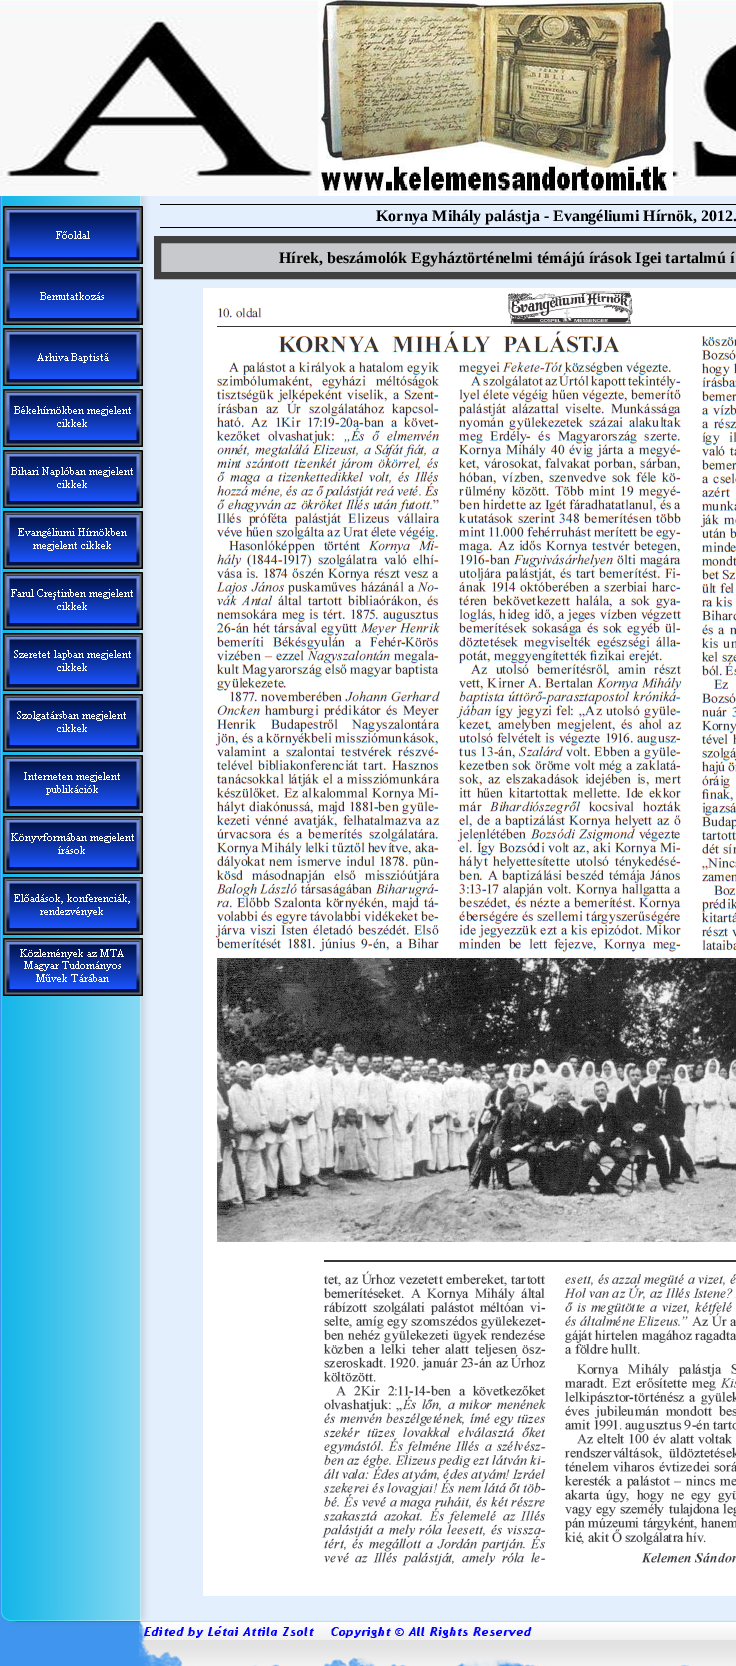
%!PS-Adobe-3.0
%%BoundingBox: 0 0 736 1666
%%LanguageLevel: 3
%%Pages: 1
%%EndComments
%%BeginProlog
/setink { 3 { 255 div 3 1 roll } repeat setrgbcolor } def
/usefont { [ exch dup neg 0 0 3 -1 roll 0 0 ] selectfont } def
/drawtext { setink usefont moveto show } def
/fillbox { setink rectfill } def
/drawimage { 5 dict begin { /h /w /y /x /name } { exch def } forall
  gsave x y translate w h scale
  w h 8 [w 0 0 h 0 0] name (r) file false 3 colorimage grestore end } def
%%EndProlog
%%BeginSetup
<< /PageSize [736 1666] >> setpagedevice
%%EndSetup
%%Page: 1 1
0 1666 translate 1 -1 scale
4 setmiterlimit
0 0 736 1666 64 149 239 fillbox
(assets/img1.rgb) 0 0 736 196 drawimage
(assets/img2.rgb) 1 196 144 1409 drawimage
(assets/img3.rgb) 145 196 591 1409 drawimage
(assets/img4.rgb) 3 206 140 58 drawimage
(assets/img5.rgb) 3 267 140 58 drawimage
(assets/img6.rgb) 3 328 140 58 drawimage
(assets/img7.rgb) 3 389 140 58 drawimage
(assets/img8.rgb) 3 450 140 58 drawimage
(assets/img9.rgb) 3 511 140 58 drawimage
(assets/img10.rgb) 3 572 140 58 drawimage
(assets/img11.rgb) 3 633 140 58 drawimage
(assets/img12.rgb) 3 694 140 58 drawimage
(assets/img13.rgb) 3 755 140 58 drawimage
(assets/img14.rgb) 3 816 140 58 drawimage
(assets/img15.rgb) 3 877 140 58 drawimage
(assets/img16.rgb) 3 938 140 58 drawimage
160 204 576 1 0 0 0 fillbox
160 227 576 1 0 0 0 fillbox
(Kornya Mihály palástja - Evangéliumi Hírnök, 2012.) 376 221 /LiberationSerif-Bold 16 0 0 0 drawtext
199 201 204 setink
157.5 239.5 moveto 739.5 239.5 lineto 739.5 275.5 lineto 157.5 275.5 lineto closepath gsave fill grestore
64 64 64 setink
7 setlinewidth
stroke
(Hírek, beszámolók Egyháztörténelmi témájú írások Igei tartalmú í) 279 263 /LiberationSerif-Bold 16 0 0 0 drawtext
(assets/img17.rgb) 203 288 533 1308 drawimage
(assets/img18.rgb) 1 1605 735 61 drawimage
showpage
%%EOF
